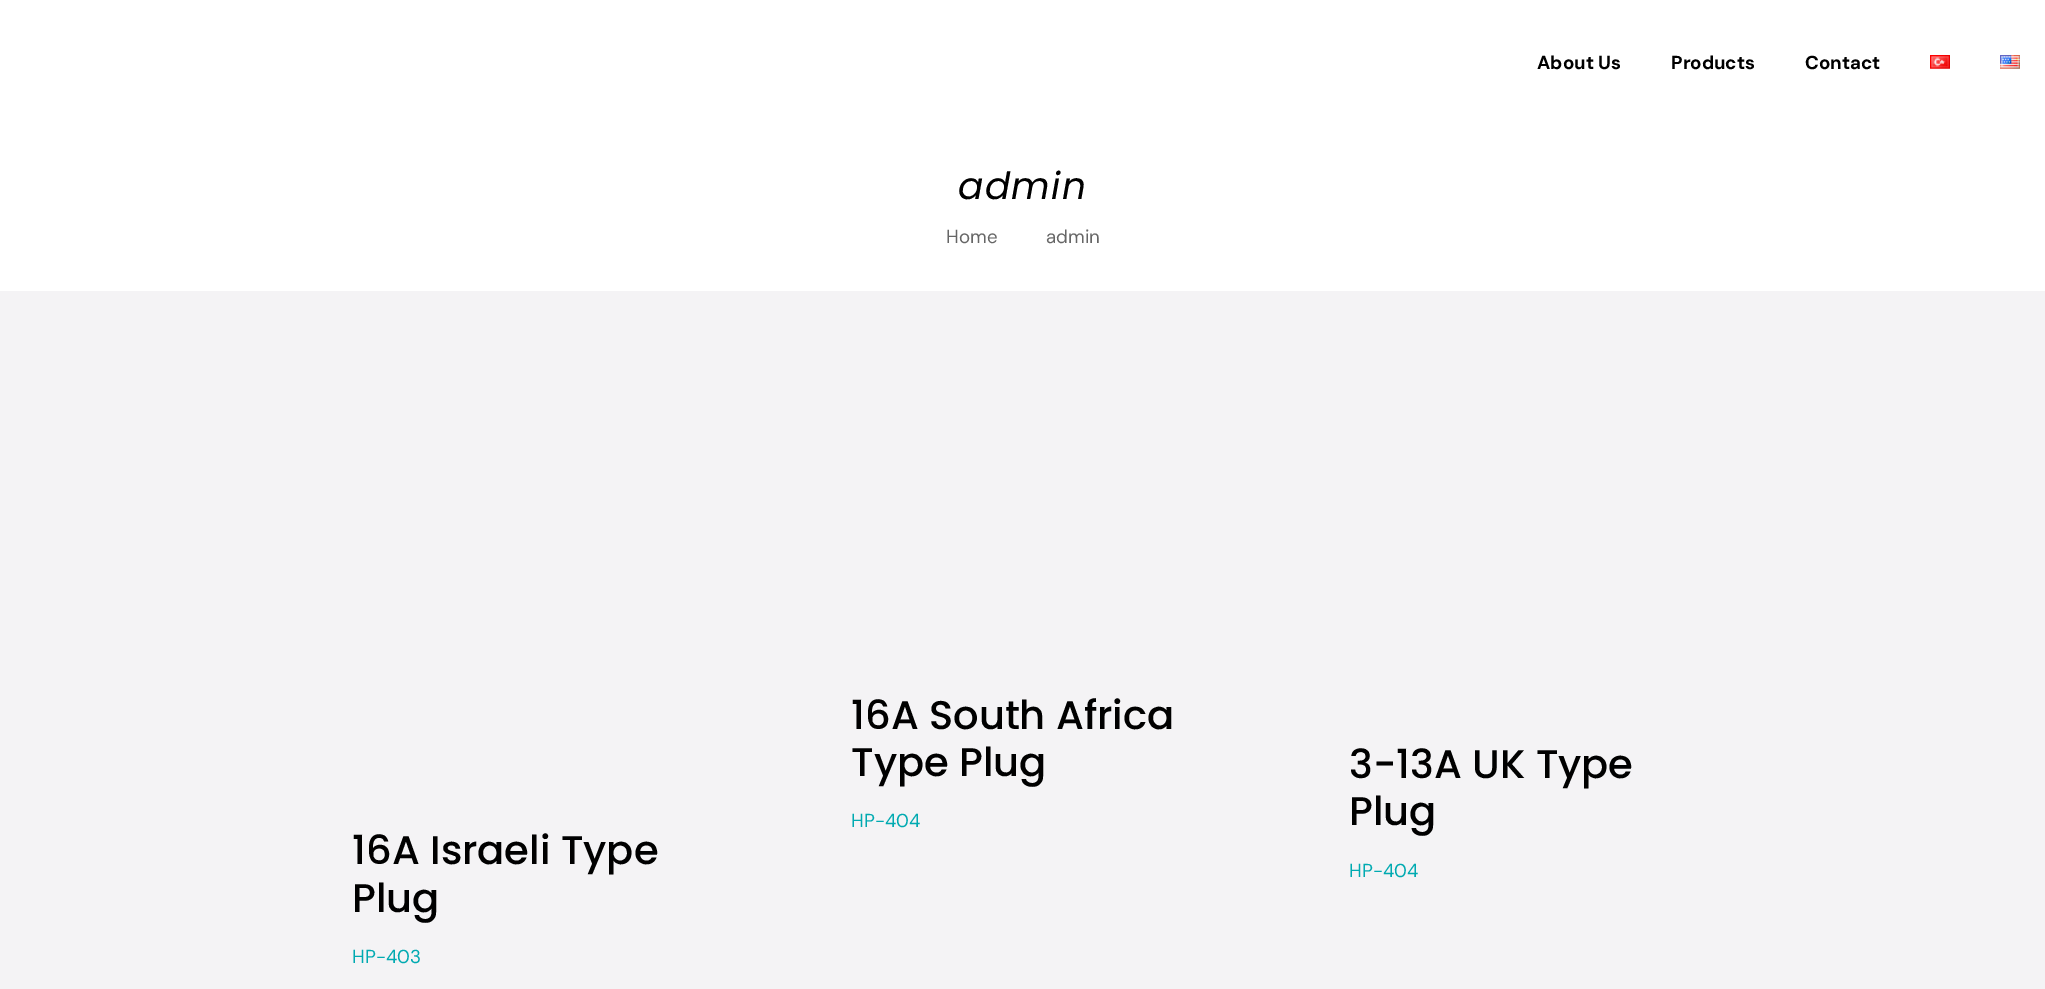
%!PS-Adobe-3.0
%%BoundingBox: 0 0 2045 989
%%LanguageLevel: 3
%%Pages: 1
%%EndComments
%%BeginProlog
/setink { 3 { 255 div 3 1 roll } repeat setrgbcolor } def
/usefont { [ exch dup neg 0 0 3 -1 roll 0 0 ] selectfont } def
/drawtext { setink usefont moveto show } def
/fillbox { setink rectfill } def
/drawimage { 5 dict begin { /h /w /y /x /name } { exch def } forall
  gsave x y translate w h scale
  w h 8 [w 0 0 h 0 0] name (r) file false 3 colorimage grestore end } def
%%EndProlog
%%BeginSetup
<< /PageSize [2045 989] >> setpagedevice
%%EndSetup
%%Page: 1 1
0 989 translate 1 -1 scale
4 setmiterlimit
0 0 2045 989 244 243 245 fillbox
0 0 2045 291 255 255 255 fillbox
(About Us) 1537 69 /DMSans-Bold 18.75 0 0 0 drawtext
(Products) 1671 69 /DMSans-Bold 18.75 0 0 0 drawtext
(Contact) 1805 69 /DMSans-Bold 18.75 0 0 0 drawtext
(assets/img1.rgb) 1930 55 20 14 drawimage
(assets/img2.rgb) 2000 55 20 14 drawimage
/Poppins-Italic 37.5 usefont
958 199 moveto 1.25 0 (admin) ashow
(Home) 946 243 /DMSans-Regular 18.75 102 102 102 drawtext
(admin) 1046 243 /DMSans-Regular 18.75 102 102 102 drawtext
(16A South Africa) 851 729 /Poppins-Medium 40 0 0 0 drawtext
(Type Plug) 851 776 /Poppins-Medium 40 0 0 0 drawtext
(HP-404) 851 827 /DMSans-Regular 18.75 0 170 177 drawtext
(3-13A UK Type) 1349 778 /Poppins-Medium 40 0 0 0 drawtext
(Plug) 1349 825 /Poppins-Medium 40 0 0 0 drawtext
(HP-404) 1349 877 /DMSans-Regular 18.75 0 170 177 drawtext
(16A Israeli Type) 352 864 /Poppins-Medium 40 0 0 0 drawtext
(Plug) 352 912 /Poppins-Medium 40 0 0 0 drawtext
(HP-403) 352 963 /DMSans-Regular 18.75 0 170 177 drawtext
showpage
%%EOF
